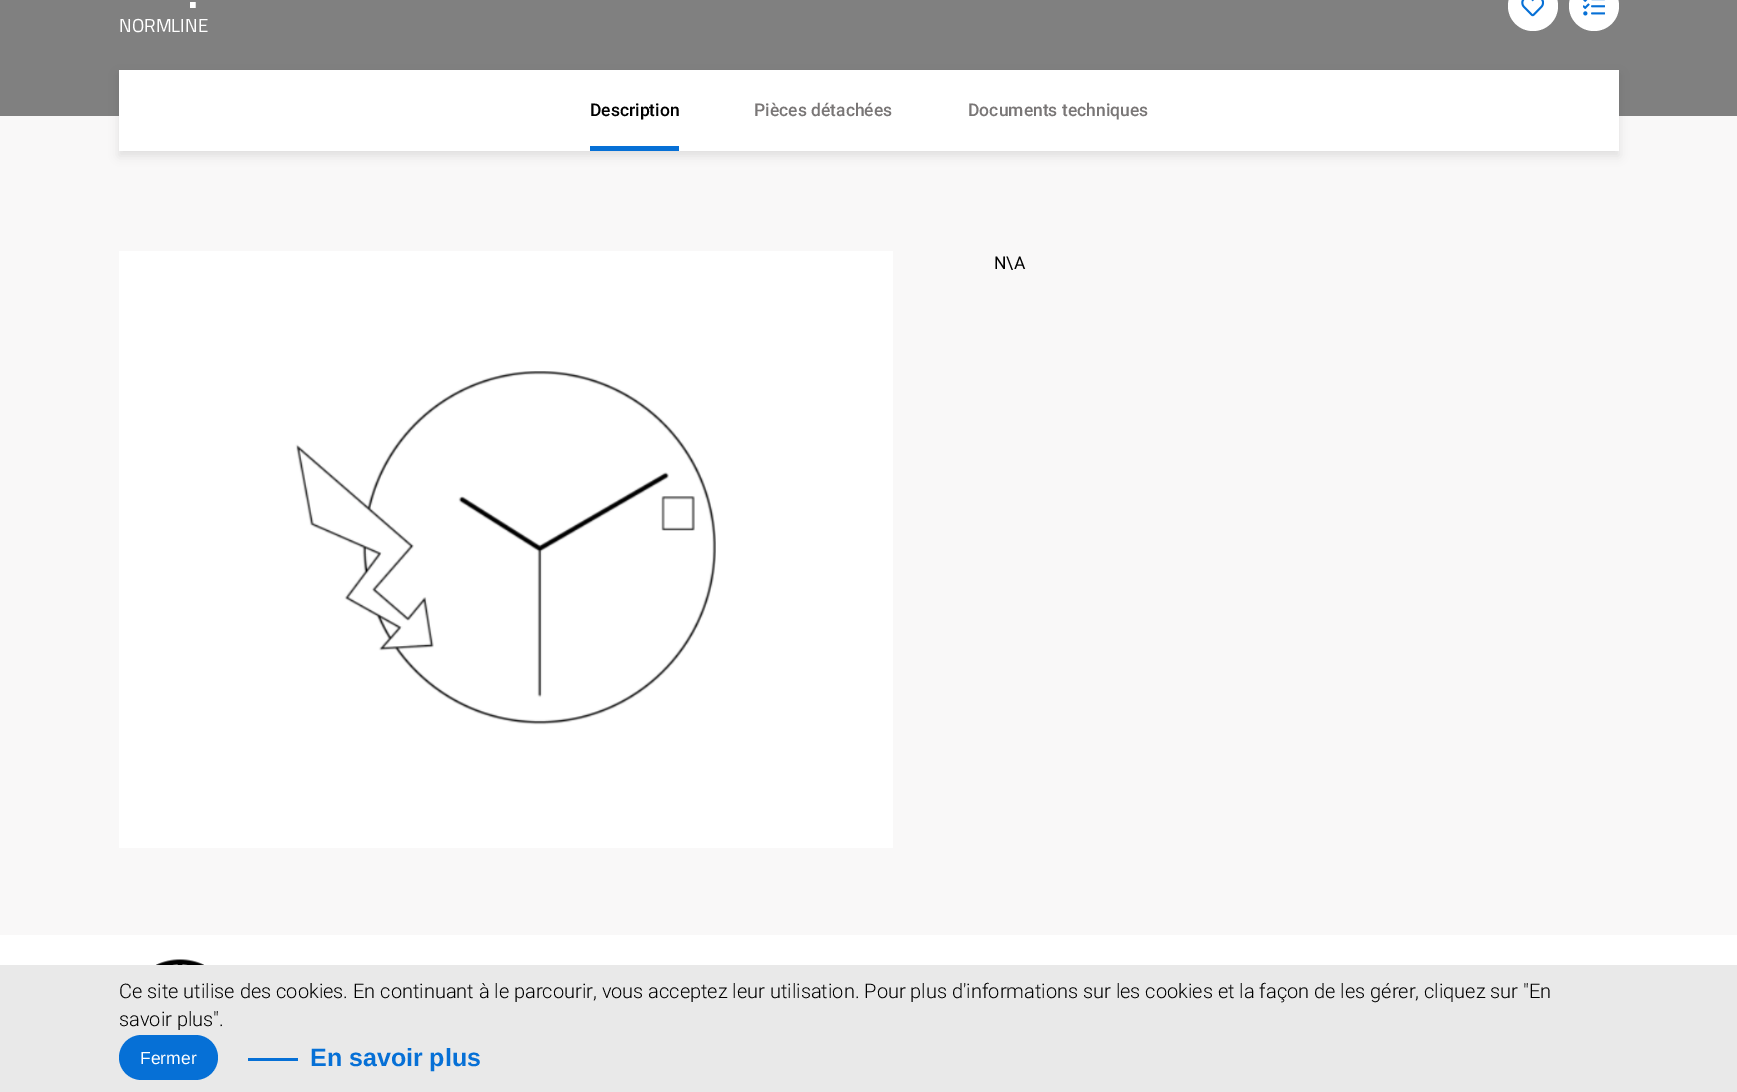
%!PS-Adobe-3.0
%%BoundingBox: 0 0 1737 1092
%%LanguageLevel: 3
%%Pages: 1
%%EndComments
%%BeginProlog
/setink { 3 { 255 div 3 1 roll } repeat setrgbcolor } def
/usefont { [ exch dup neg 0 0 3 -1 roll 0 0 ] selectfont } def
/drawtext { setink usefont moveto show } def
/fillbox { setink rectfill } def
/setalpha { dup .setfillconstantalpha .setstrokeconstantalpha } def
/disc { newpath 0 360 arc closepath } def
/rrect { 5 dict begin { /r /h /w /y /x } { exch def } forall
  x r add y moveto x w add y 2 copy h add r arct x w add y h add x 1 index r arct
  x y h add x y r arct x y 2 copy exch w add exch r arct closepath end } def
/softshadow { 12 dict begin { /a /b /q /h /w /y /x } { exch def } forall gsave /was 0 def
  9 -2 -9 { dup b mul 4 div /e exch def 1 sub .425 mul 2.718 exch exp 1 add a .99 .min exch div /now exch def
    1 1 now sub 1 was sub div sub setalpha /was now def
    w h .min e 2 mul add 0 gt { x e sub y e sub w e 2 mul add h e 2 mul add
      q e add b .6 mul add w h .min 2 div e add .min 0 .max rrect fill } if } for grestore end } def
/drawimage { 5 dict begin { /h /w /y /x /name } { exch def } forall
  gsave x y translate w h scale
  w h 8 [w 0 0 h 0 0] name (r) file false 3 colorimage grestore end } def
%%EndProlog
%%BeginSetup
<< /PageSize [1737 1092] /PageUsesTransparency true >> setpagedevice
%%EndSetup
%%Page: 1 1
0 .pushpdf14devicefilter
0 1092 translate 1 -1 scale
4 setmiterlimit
0 0 1737 1092 249 248 248 fillbox
0 0 1737 116 128 128 128 fillbox
255 255 255 setink
1533 6 25 disc fill
(assets/img1.rgb) 1521 0 23 17 drawimage
1594 6 25 disc fill
(assets/img2.rgb) 1583 0 22 16 drawimage
(.) 188 8 /Cairo-Bold 41 255 255 255 drawtext
(NORMLINE) 119 32 /Cairo-Regular 18.75 255 255 255 drawtext
119 70 1500 81 255 255 255 fillbox
gsave
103 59 moveto 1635 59 lineto 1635 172 lineto 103 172 lineto closepath 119 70 moveto 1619 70 lineto 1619 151 lineto 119 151 lineto closepath eoclip newpath
0 0 0 setink
119 75 1500 81 0 5 0.1 softshadow
grestore
(Description) 590 116 /Roboto-Medium 17.5 0 0 0 drawtext
590 146 89 5 6 112 214 fillbox
(Pièces détachées) 754 116 /Roboto-Medium 17.5 121 118 118 drawtext
(Documents techniques) 968 116 /Roboto-Medium 17.5 121 118 118 drawtext
119 251 774 597 255 255 255 fillbox
(assets/img3.rgb) 295 371 421 354 drawimage
(N\\A) 994 269 /Roboto-Regular 17.5 0 0 0 drawtext
0 935 1737 30 255 255 255 fillbox
(assets/img4.rgb) 156 959 48 6 drawimage
0 965 1737 127 233 233 233 fillbox
(Ce site utilise des cookies. En continuant à le parcourir, vous acceptez leur utilisation. Pour plus d'informations sur les cookies et la façon de les gérer, cliquez sur "En) 119 998 /Roboto-Light 20 0 0 0 drawtext
(savoir plus".) 119 1026 /Roboto-Light 20 0 0 0 drawtext
6 112 214 setink
119 1035 99 45 22.5 rrect fill
(Fermer) 140 1064 /LiberationSans-Regular 17.5 255 255 255 drawtext
248 1058 50 3 6 112 214 fillbox
(En savoir plus) 310 1066 /LiberationSans-Bold 25 6 112 214 drawtext
.poppdf14devicefilter showpage
%%EOF
